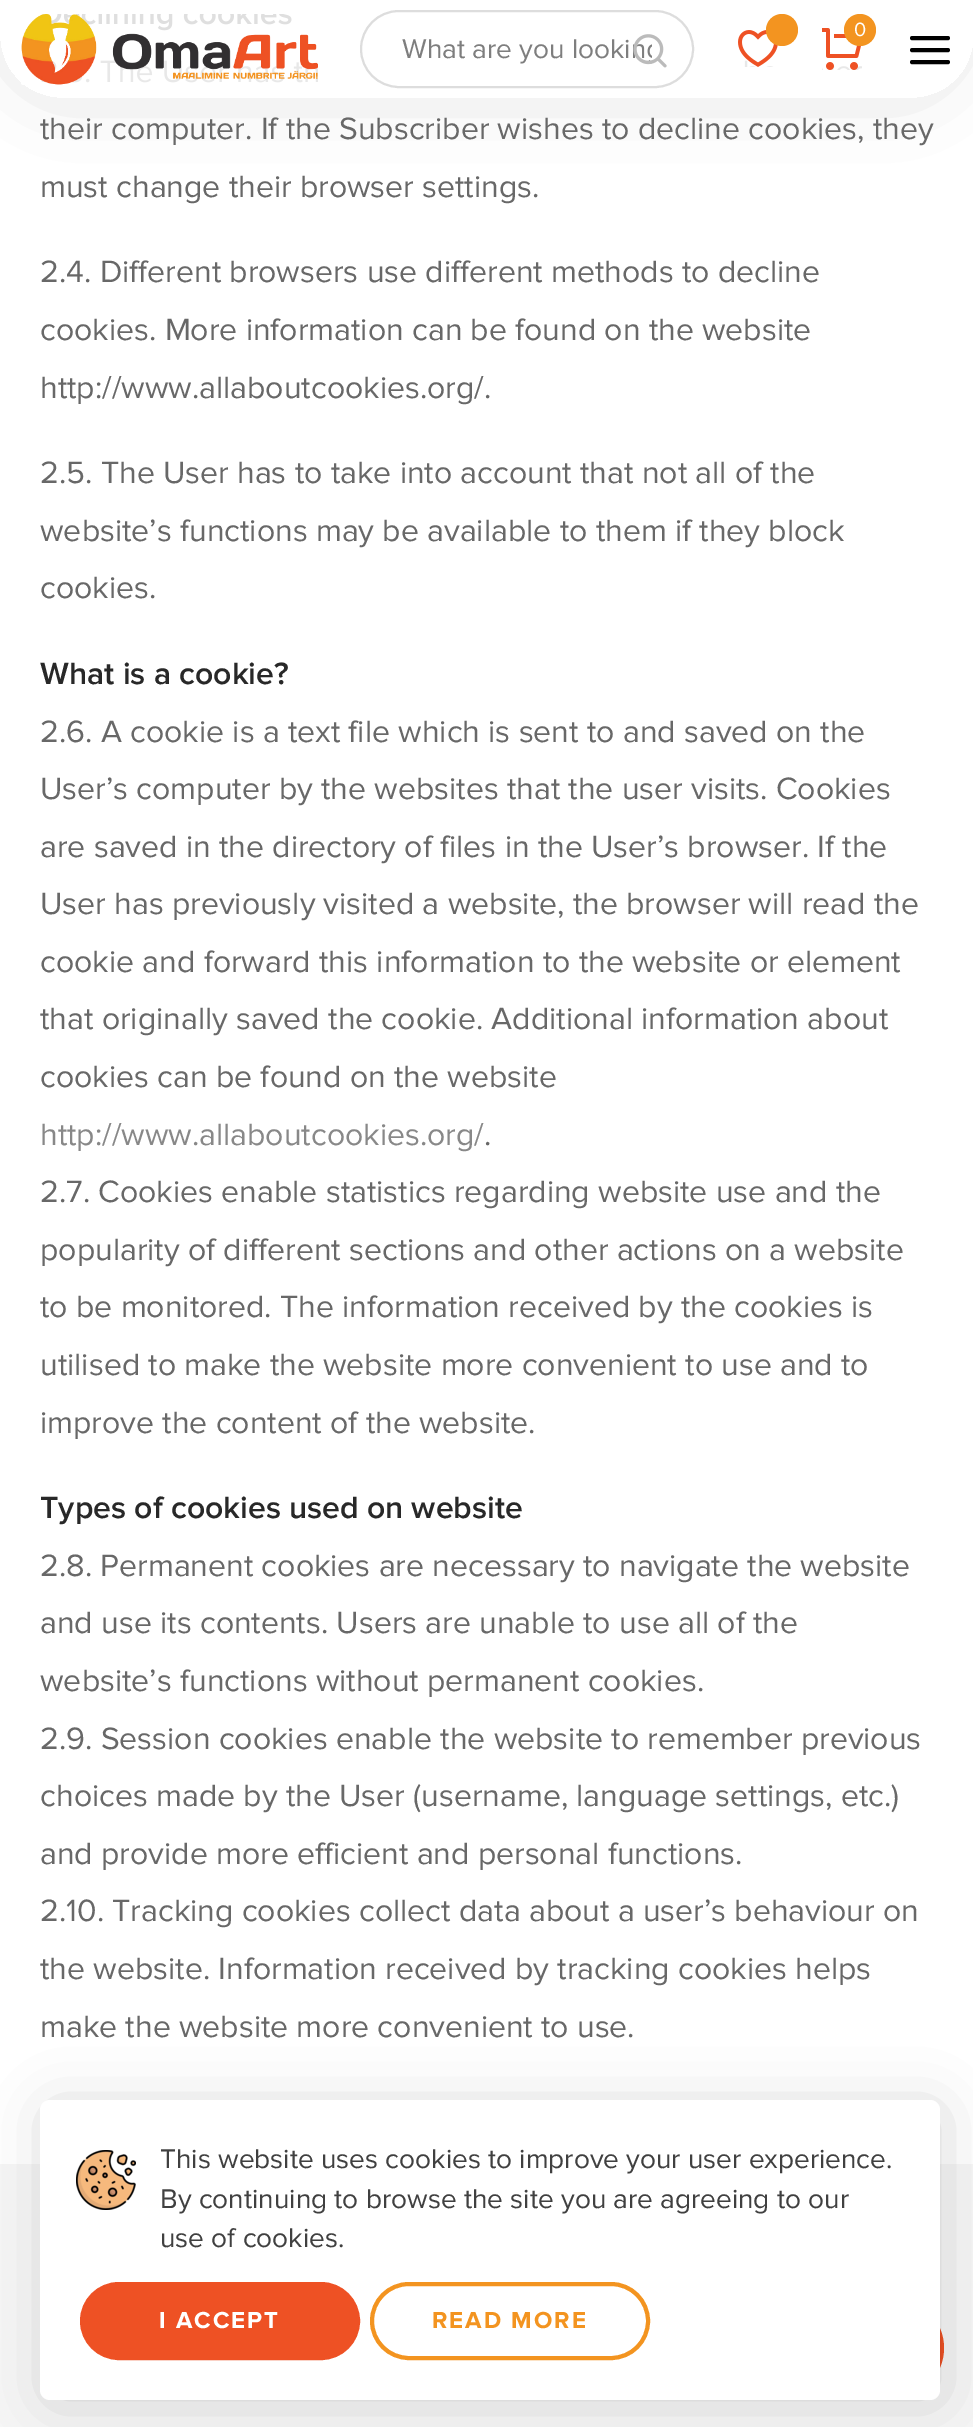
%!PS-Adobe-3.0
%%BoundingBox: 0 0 973 2427
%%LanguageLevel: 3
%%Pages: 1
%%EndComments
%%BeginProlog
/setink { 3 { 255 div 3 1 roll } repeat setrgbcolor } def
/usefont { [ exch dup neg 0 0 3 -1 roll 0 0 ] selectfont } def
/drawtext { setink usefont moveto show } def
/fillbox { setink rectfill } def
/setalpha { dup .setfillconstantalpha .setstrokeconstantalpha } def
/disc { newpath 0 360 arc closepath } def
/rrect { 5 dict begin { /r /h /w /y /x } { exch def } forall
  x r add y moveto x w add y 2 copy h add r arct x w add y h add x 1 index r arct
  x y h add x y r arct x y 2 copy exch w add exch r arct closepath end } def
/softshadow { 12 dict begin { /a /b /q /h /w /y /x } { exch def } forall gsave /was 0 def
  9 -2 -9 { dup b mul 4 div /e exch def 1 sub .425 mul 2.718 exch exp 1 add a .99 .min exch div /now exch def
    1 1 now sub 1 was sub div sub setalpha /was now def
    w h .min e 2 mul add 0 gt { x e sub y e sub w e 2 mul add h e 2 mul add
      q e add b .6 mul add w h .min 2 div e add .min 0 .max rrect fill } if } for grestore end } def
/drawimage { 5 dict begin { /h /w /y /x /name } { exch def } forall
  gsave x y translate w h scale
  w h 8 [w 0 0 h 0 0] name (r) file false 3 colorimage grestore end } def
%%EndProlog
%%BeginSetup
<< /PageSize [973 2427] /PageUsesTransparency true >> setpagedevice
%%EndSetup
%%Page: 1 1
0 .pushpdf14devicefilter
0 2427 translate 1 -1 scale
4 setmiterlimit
0 0 973 2427 255 255 255 fillbox
gsave
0 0 moveto 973 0 lineto 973 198 lineto 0 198 lineto closepath 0 -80 moveto 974 -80 lineto 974 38 lineto 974 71 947 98 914 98 curveto 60 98 lineto 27 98 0 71 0 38 curveto closepath eoclip newpath
0 0 0 setink
36 -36 894 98 20 45 0.3 softshadow
grestore
(assets/img1.rgb) 21 14 297 71 drawimage
(assets/img2.rgb) 738 30 40 37 drawimage
243 148 32 setink
782 30 16 disc fill
(assets/img3.rgb) 822 28 40 42 drawimage
860 30 16 disc fill
(0) 854 36 /ProximaNova-Regular 20 255 255 255 drawtext
221 221 221 setink
2 setlinewidth
361 11 332 76 38 rrect stroke
(What are you lookin) 402 58 /ProximaNova-Regular 28 126 126 126 drawtext
(assets/img4.rgb) 633 34 34 34 drawimage
0 0 0 setink
4 setlinewidth
1 setlinecap
1 setlinejoin
912 50 moveto 948 50 lineto 912 38 moveto 948 38 lineto 912 62 moveto 948 62 lineto stroke
(their computer. If the Subscriber wishes to decline cookies, they) 40 139 /ProximaNova-Regular 32 104 104 104 drawtext
(must change their browser settings.) 40 197 /ProximaNova-Regular 32 104 104 104 drawtext
(2.4. Different browsers use different methods to decline) 40 282 /ProximaNova-Regular 32 104 104 104 drawtext
(cookies. More information can be found on the website) 40 340 /ProximaNova-Regular 32 104 104 104 drawtext
(http://www.allaboutcookies.org/.) 40 398 /ProximaNova-Regular 32 104 104 104 drawtext
(2.5. The User has to take into account that not all of the) 40 483 /ProximaNova-Regular 32 104 104 104 drawtext
(website’s functions may be available to them if they block) 40 541 /ProximaNova-Regular 32 104 104 104 drawtext
(cookies.) 40 598 /ProximaNova-Regular 32 104 104 104 drawtext
(What is a cookie?) 40 684 /ProximaNova-SemiBold 32 40 40 40 drawtext
(2.6. A cookie is a text file which is sent to and saved on the) 40 742 /ProximaNova-Regular 32 104 104 104 drawtext
(User’s computer by the websites that the user visits. Cookies) 40 799 /ProximaNova-Regular 32 104 104 104 drawtext
(are saved in the directory of files in the User’s browser. If the) 40 857 /ProximaNova-Regular 32 104 104 104 drawtext
(User has previously visited a website, the browser will read the) 40 914 /ProximaNova-Regular 32 104 104 104 drawtext
(cookie and forward this information to the website or element) 40 972 /ProximaNova-Regular 32 104 104 104 drawtext
(that originally saved the cookie. Additional information about) 40 1029 /ProximaNova-Regular 32 104 104 104 drawtext
(cookies can be found on the website) 40 1087 /ProximaNova-Regular 32 104 104 104 drawtext
(http://www.allaboutcookies.org/) 40 1145 /ProximaNova-Regular 32 136 136 136 drawtext
(.) 484 1145 /ProximaNova-Regular 32 104 104 104 drawtext
(2.7. Cookies enable statistics regarding website use and the) 40 1202 /ProximaNova-Regular 32 104 104 104 drawtext
(popularity of different sections and other actions on a website) 40 1260 /ProximaNova-Regular 32 104 104 104 drawtext
(to be monitored. The information received by the cookies is) 40 1317 /ProximaNova-Regular 32 104 104 104 drawtext
(utilised to make the website more convenient to use and to) 40 1375 /ProximaNova-Regular 32 104 104 104 drawtext
(improve the content of the website.) 40 1433 /ProximaNova-Regular 32 104 104 104 drawtext
(Types of cookies used on website) 40 1518 /ProximaNova-SemiBold 32 40 40 40 drawtext
(2.8. Permanent cookies are necessary to navigate the website) 40 1576 /ProximaNova-Regular 32 104 104 104 drawtext
(and use its contents. Users are unable to use all of the) 40 1633 /ProximaNova-Regular 32 104 104 104 drawtext
(website’s functions without permanent cookies.) 40 1691 /ProximaNova-Regular 32 104 104 104 drawtext
(2.9. Session cookies enable the website to remember previous) 40 1749 /ProximaNova-Regular 32 104 104 104 drawtext
(choices made by the User \(username, language settings, etc.\)) 40 1806 /ProximaNova-Regular 32 104 104 104 drawtext
(and provide more efficient and personal functions.) 40 1864 /ProximaNova-Regular 32 104 104 104 drawtext
(2.10. Tracking cookies collect data about a user’s behaviour on) 40 1921 /ProximaNova-Regular 32 104 104 104 drawtext
(the website. Information received by tracking cookies helps) 40 1979 /ProximaNova-Regular 32 104 104 104 drawtext
(make the website more convenient to use.) 40 2037 /ProximaNova-Regular 32 104 104 104 drawtext
0 2164 973 263 246 246 246 fillbox
238 81 36 setink
894 2348 50 disc fill
0 0 0 setink
54 2114 880 280 0 30 0.2 softshadow
255 255 255 setink
40 2100 900 300 10 rrect fill
(assets/img5.rgb) 76 2150 60 60 drawimage
(This website uses cookies to improve your user experience.) 160 2168 /ProximaNova-Regular 28 64 64 64 drawtext
(By continuing to browse the site you are agreeing to our) 160 2208 /ProximaNova-Regular 28 64 64 64 drawtext
(use of cookies.) 160 2247 /ProximaNova-Regular 28 64 64 64 drawtext
238 81 36 setink
82 2284 276 74 37 rrect gsave fill grestore
0 setlinecap
0 setlinejoin
stroke
/ProximaNova-Bold 24 usefont
255 255 255 setink
159 2328 moveto 2 0 (I ACCEPT) ashow
243 148 32 setink
372 2284 276 74 37 rrect stroke
432 2328 moveto 2 0 (READ MORE) ashow
.poppdf14devicefilter showpage
%%EOF
